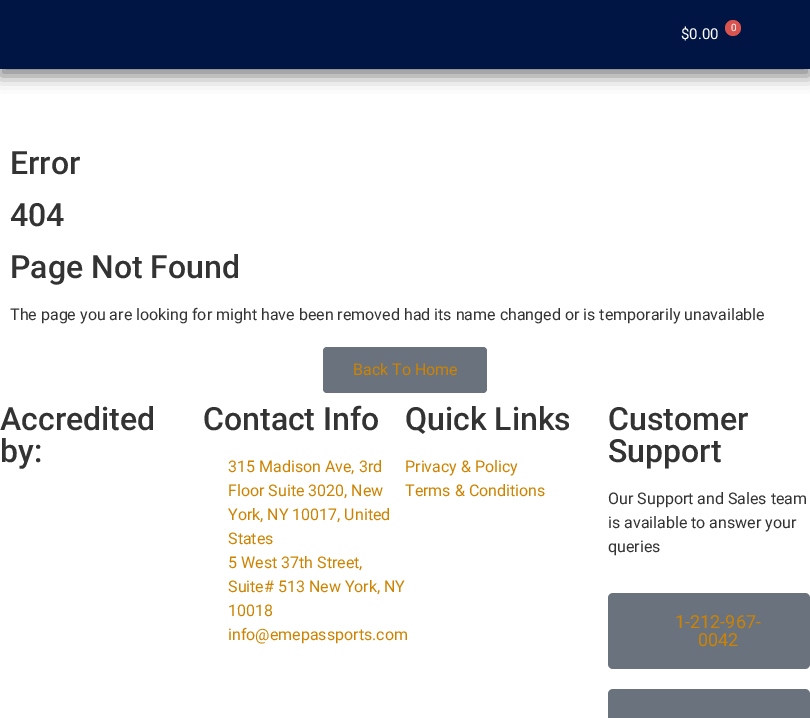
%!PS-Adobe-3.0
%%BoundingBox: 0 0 810 718
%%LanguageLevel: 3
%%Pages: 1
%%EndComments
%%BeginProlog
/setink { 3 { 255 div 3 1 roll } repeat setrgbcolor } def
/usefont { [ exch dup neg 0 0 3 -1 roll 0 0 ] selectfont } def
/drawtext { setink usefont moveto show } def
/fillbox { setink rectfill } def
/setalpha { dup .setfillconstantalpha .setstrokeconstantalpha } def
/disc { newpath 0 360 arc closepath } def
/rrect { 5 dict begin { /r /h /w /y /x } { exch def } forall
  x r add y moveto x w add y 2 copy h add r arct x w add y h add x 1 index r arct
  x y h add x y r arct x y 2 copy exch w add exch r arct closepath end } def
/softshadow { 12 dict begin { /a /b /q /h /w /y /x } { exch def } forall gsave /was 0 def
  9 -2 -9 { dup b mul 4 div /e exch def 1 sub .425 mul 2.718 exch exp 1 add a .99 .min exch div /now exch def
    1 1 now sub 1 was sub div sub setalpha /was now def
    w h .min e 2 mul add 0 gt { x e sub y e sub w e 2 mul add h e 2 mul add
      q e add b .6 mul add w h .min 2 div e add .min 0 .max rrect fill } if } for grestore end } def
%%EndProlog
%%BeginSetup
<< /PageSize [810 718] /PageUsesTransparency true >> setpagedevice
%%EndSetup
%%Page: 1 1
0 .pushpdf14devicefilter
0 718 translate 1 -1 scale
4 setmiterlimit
0 0 810 718 255 255 255 fillbox
0 0 0 setink
0 7 810 69 0 8 0.5 softshadow
0 0 810 69 0 21 68 fillbox
($0.00) 681 39 /Roboto-Regular 15 255 255 255 drawtext
217 83 79 setink
733 28 8 disc fill
(0) 731 31 /Roboto-Regular 10 255 255 255 drawtext
(Error) 10 174 /Roboto-Medium 32 51 51 51 drawtext
(404) 10 226 /Roboto-Medium 32 51 51 51 drawtext
(Page Not Found) 10 278 /Roboto-Medium 32 51 51 51 drawtext
(The page you are looking for might have been removed had its name changed or is temporarily unavailable) 10 320 /Roboto-Regular 16 51 51 51 drawtext
105 114 125 setink
323 347 164 46 4 rrect fill
(Back To Home) 353 375 /Roboto-Regular 16 205 131 1 drawtext
(Accredited) 0 430 /Roboto-Medium 32 51 51 51 drawtext
(by:) 0 462 /Roboto-Medium 32 51 51 51 drawtext
(Contact Info) 203 430 /Roboto-Medium 32 51 51 51 drawtext
(315 Madison Ave, 3rd) 228 472 /Roboto-Regular 16 205 131 1 drawtext
(Floor Suite 3020, New) 228 496 /Roboto-Regular 16 205 131 1 drawtext
(York, NY 10017, United) 228 520 /Roboto-Regular 16 205 131 1 drawtext
(States) 228 544 /Roboto-Regular 16 205 131 1 drawtext
(5 West 37th Street,) 228 568 /Roboto-Regular 16 205 131 1 drawtext
(Suite# 513 New York, NY) 228 592 /Roboto-Regular 16 205 131 1 drawtext
(10018) 228 616 /Roboto-Regular 16 205 131 1 drawtext
(info@emepassports.com) 228 640 /Roboto-Regular 16 205 131 1 drawtext
(Quick Links) 405 430 /Roboto-Medium 32 51 51 51 drawtext
(Privacy & Policy) 405 472 /Roboto-Regular 16 205 131 1 drawtext
(Terms & Conditions) 405 496 /Roboto-Regular 16 205 131 1 drawtext
(Customer) 608 430 /Roboto-Medium 32 51 51 51 drawtext
(Support) 608 462 /Roboto-Medium 32 51 51 51 drawtext
(Our Support and Sales team) 608 504 /Roboto-Regular 16 51 51 51 drawtext
(is available to answer your) 608 528 /Roboto-Regular 16 51 51 51 drawtext
(queries) 608 552 /Roboto-Regular 16 51 51 51 drawtext
105 114 125 setink
608 593 202 76 5 rrect fill
(1-212-967-) 675 628 /Roboto-Regular 18 205 131 1 drawtext
(0042) 698 646 /Roboto-Regular 18 205 131 1 drawtext
105 114 125 setink
608 689 202 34 5 rrect fill
.poppdf14devicefilter showpage
%%EOF
